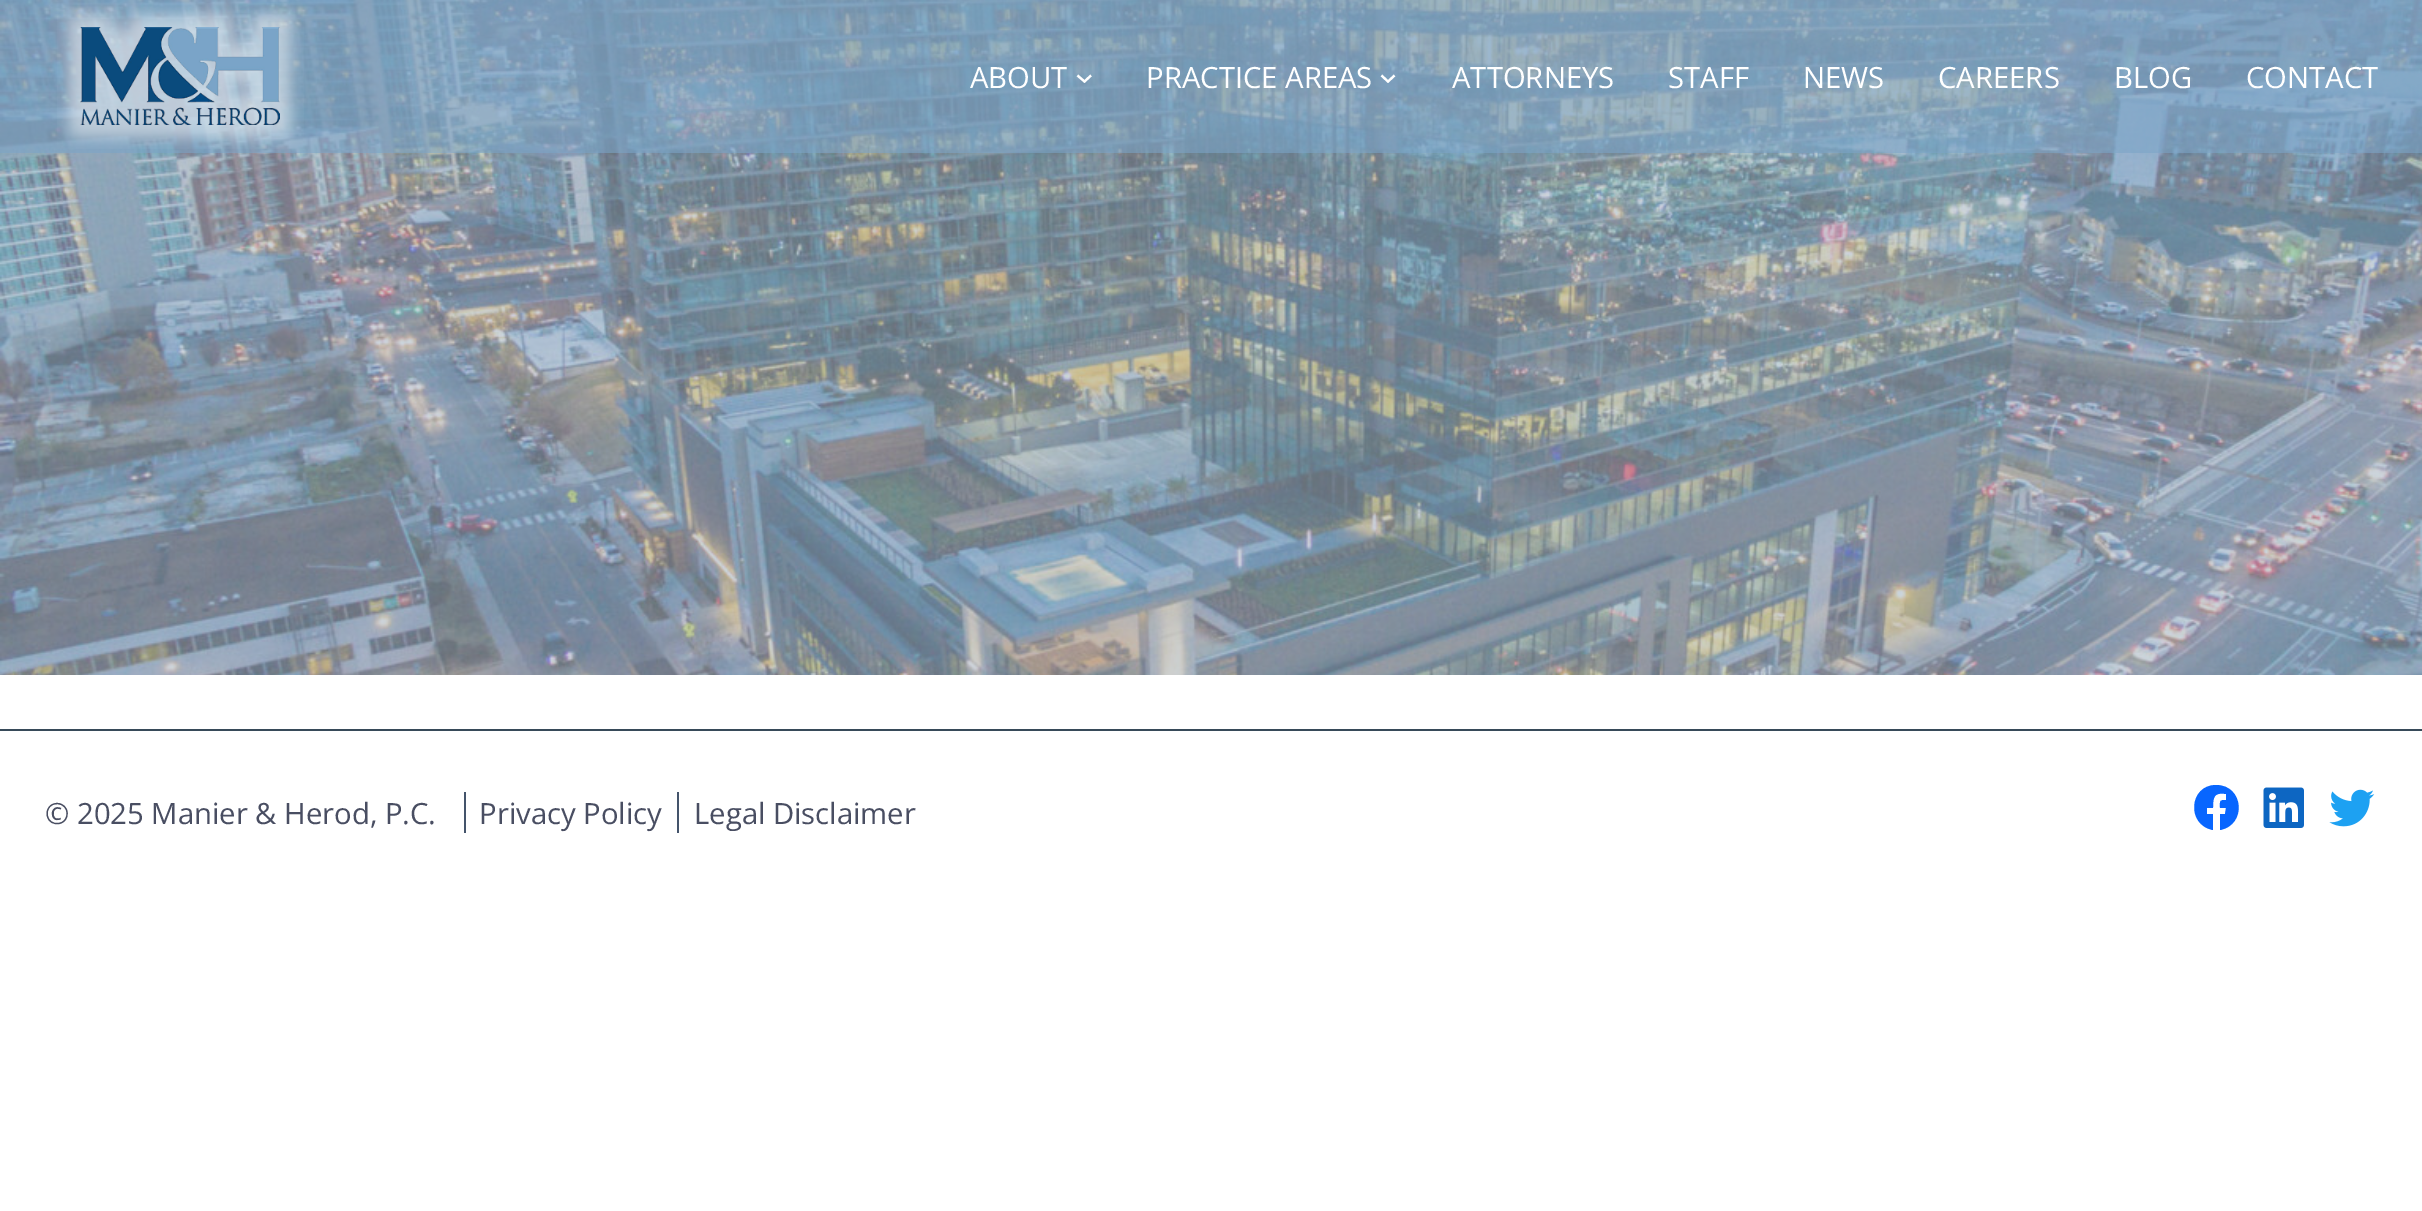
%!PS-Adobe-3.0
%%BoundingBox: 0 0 2422 1211
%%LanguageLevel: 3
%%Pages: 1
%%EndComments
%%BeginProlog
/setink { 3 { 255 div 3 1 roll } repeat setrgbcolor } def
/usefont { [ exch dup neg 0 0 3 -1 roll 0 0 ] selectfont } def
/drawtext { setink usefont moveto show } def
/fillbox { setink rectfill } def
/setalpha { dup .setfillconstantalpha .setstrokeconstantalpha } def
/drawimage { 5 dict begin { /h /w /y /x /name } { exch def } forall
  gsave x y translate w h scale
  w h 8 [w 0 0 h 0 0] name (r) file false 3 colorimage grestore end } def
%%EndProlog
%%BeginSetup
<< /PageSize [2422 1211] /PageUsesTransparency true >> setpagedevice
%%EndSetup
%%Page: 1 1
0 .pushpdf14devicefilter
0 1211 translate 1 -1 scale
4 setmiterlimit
0 0 2422 1211 255 255 255 fillbox
(assets/img1.rgb) 0 0 2422 675 drawimage
0.59 setalpha
0 0 2422 153 123 164 199 fillbox
1 setalpha
(assets/img2.rgb) 57 3 247 146 drawimage
(ABOUT) 970 88 /OpenSans-Regular 29.25 255 255 255 drawtext
2.2 setlinewidth
1077.5 75.5 moveto 1084.5 81.5 lineto 1091 75.5 lineto stroke
(PRACTICE AREAS) 1146 88 /OpenSans-Regular 29.25 255 255 255 drawtext
1381.5 75.5 moveto 1388 81.5 lineto 1394.5 75.5 lineto stroke
(ATTORNEYS) 1452 88 /OpenSans-Regular 29.25 255 255 255 drawtext
(STAFF) 1668 88 /OpenSans-Regular 29.25 255 255 255 drawtext
(NEWS) 1803 88 /OpenSans-Regular 29.25 255 255 255 drawtext
(CAREERS) 1938 88 /OpenSans-Regular 29.25 255 255 255 drawtext
(BLOG) 2114 88 /OpenSans-Regular 29.25 255 255 255 drawtext
(CONTACT) 2246 88 /OpenSans-Regular 29.25 255 255 255 drawtext
0 729 2422 2 55 74 89 fillbox
(© 2025 Manier & Herod, P.C.) 45 824 /OpenSans-Regular 29.25 73 78 98 drawtext
464 792 2 41 68 84 107 fillbox
(Privacy Policy) 479 824 /OpenSans-Regular 29.25 73 78 98 drawtext
677 792 2 41 68 84 107 fillbox
(Legal Disclaimer) 694 824 /OpenSans-Regular 29.25 73 78 98 drawtext
8 102 255 setink
2216 785 moveto 2189 785 2186 825 2213 830 curveto 2213 814 lineto 2207 814 lineto 2207 808 lineto 2213 808 lineto 2213 797 2214 792 2226 794 curveto 2226 800 lineto 2219 800 2220 801 2220 808 curveto 2226 808 lineto 2225 814 lineto 2220 814 lineto 2220 830 lineto 2247 825 2244 785 2216 785 curveto closepath fill
(assets/img3.rgb) 2263 787 41 41 drawimage
(assets/img4.rgb) 2329 789 46 38 drawimage
.poppdf14devicefilter showpage
%%EOF
